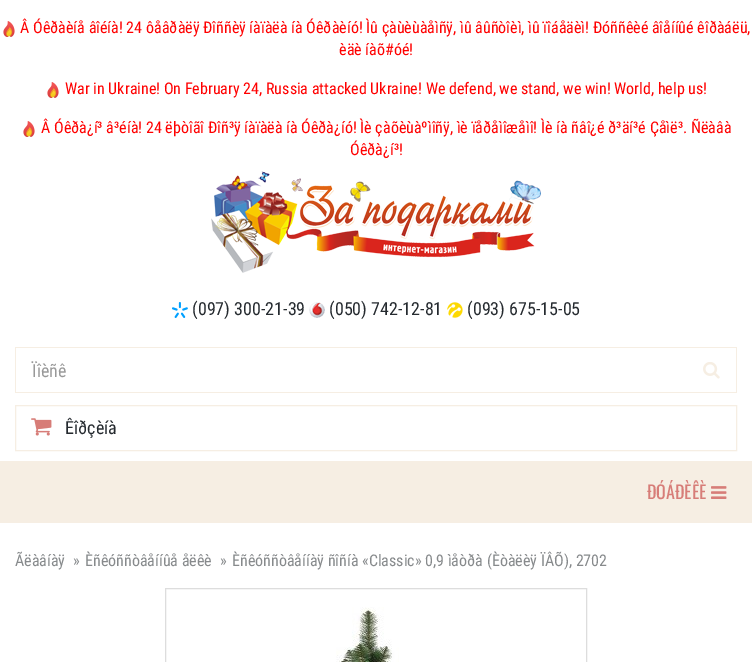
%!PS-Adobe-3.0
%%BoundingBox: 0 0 752 662
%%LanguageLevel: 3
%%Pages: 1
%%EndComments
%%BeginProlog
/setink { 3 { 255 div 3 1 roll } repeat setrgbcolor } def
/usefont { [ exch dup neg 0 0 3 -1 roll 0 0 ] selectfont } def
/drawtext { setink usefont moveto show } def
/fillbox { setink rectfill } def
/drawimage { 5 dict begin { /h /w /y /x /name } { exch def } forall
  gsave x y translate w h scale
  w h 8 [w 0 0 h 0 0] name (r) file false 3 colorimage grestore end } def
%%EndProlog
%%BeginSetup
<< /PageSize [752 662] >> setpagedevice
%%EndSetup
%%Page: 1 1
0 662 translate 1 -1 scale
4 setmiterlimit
0 0 752 662 255 255 255 fillbox
(assets/img1.rgb) 3 21 12 16 drawimage
(Â Óêðàèíå âîéíà! 24 ôåâðàëÿ Ðîññèÿ íàïàëà íà Óêðàèíó! Ìû çàùèùàåìñÿ, ìû âûñòîèì, ìû ïîáåäèì! Ðóññêèé âîåííûé êîðàáëü,) 20 33 /RobotoCondensed-Regular 16 255 0 0 drawtext
(èäè íàõ#óé!) 339 55 /RobotoCondensed-Regular 16 255 0 0 drawtext
(assets/img1.rgb) 47 82 12 16 drawimage
(War in Ukraine! On February 24, Russia attacked Ukraine! We defend, we stand, we win! World, help us!) 65 94 /RobotoCondensed-Regular 16 255 0 0 drawtext
(assets/img1.rgb) 23 121 12 16 drawimage
(Â Óêðà¿í³ â³éíà! 24 ëþòîãî Ðîñ³ÿ íàïàëà íà Óêðà¿íó! Ìè çàõèùàºìîñÿ, ìè ïåðåìîæåìî! Ìè íà ñâî¿é ð³äí³é Çåìë³. Ñëàâà) 41 133 /RobotoCondensed-Regular 16 255 0 0 drawtext
(Óêðà¿í³!) 350 155 /RobotoCondensed-Regular 16 255 0 0 drawtext
(assets/img2.rgb) 211 171 330 102 drawimage
(assets/img3.rgb) 172 302 16 16 drawimage
(\(097\) 300-21-39) 192 315 /RobotoCondensed-Regular 18 37 42 47 drawtext
(assets/img4.rgb) 309 302 16 16 drawimage
(\(050\) 742-12-81) 329 315 /RobotoCondensed-Regular 18 37 42 47 drawtext
(assets/img5.rgb) 447 302 16 16 drawimage
(\(093\) 675-15-05) 467 315 /RobotoCondensed-Regular 18 37 42 47 drawtext
15 347 722 1 246 238 227 fillbox
736 347 1 46 246 238 227 fillbox
15 392 722 1 246 238 227 fillbox
(assets/img6.rgb) 703 362 17 17 drawimage
15 347 1 46 246 238 227 fillbox
(Ïîèñê) 32 377 /RobotoCondensed-Regular 18 153 153 153 drawtext
246 238 227 setink
15.5 405.5 721 45 rectstroke
(assets/img7.rgb) 31 418 21 18 drawimage
(Êîðçèíà) 65 434 /RobotoCondensed-Regular 18 37 42 47 drawtext
0 461 752 62 246 238 227 fillbox
(ÐÓÁÐÈÊÈ) 647 499 /Oswald-Regular 18 215 125 120 drawtext
(assets/img8.rgb) 711 486 16 13 drawimage
(Ãëàâíàÿ) 15 566 /RobotoCondensed-Regular 16 135 138 140 drawtext
(») 73 566 /RobotoCondensed-Regular 16 135 138 140 drawtext
(Èñêóññòâåííûå åëêè) 85 566 /RobotoCondensed-Regular 16 135 138 140 drawtext
(») 220 566 /RobotoCondensed-Regular 16 135 138 140 drawtext
(Èñêóññòâåííàÿ ñîñíà «Classic» 0,9 ìåòðà \(Èòàëèÿ ÏÂÕ\), 2702) 232 566 /RobotoCondensed-Regular 16 135 138 140 drawtext
221 221 221 setink
165.5 588.5 421 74 rectstroke
(assets/img9.rgb) 336 607 63 55 drawimage
showpage
%%EOF
